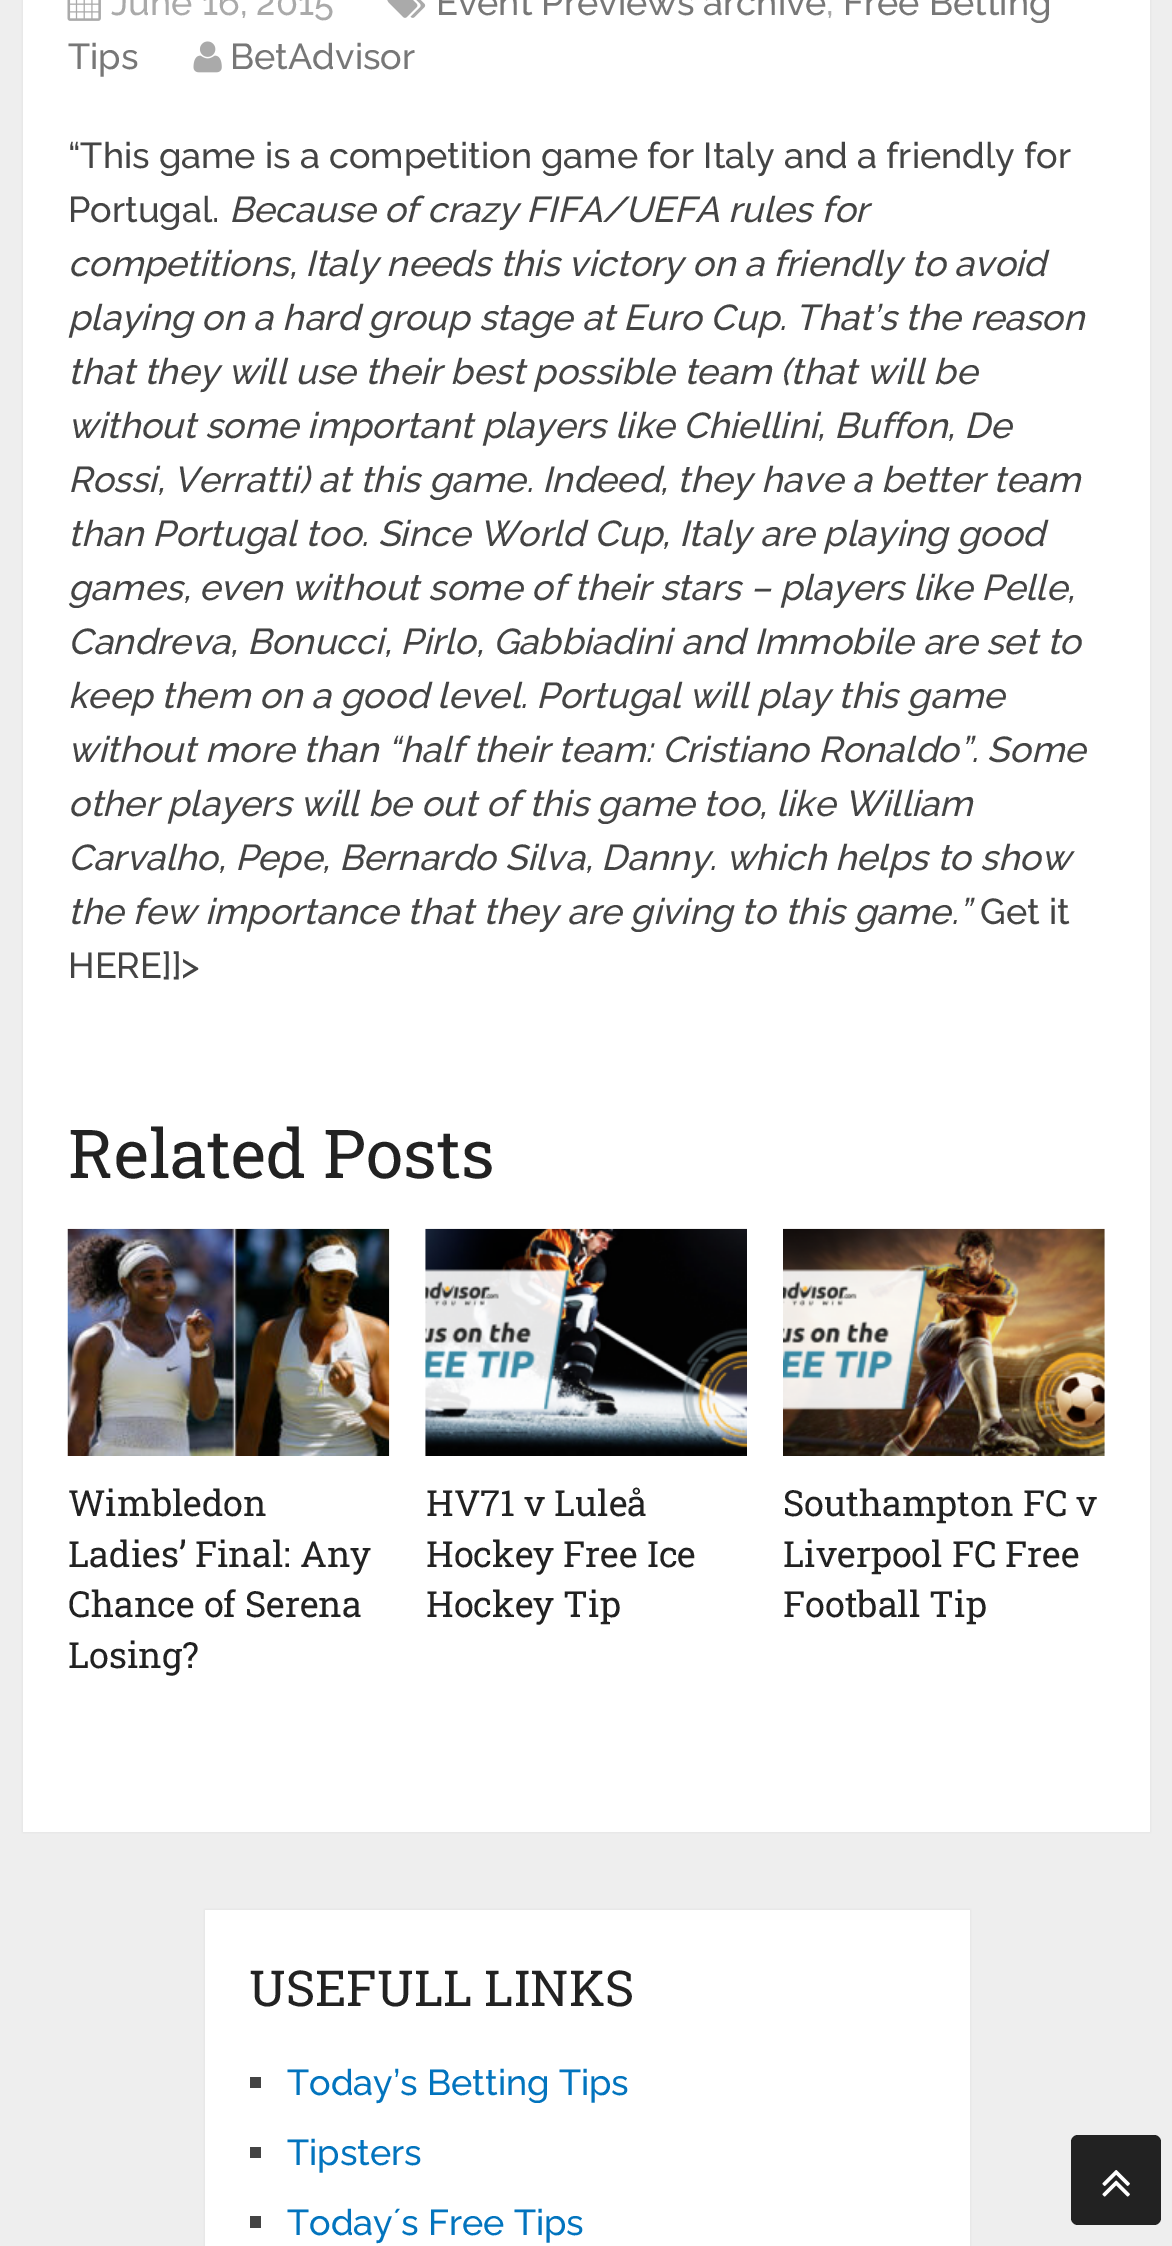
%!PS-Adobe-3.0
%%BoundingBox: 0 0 1172 2246
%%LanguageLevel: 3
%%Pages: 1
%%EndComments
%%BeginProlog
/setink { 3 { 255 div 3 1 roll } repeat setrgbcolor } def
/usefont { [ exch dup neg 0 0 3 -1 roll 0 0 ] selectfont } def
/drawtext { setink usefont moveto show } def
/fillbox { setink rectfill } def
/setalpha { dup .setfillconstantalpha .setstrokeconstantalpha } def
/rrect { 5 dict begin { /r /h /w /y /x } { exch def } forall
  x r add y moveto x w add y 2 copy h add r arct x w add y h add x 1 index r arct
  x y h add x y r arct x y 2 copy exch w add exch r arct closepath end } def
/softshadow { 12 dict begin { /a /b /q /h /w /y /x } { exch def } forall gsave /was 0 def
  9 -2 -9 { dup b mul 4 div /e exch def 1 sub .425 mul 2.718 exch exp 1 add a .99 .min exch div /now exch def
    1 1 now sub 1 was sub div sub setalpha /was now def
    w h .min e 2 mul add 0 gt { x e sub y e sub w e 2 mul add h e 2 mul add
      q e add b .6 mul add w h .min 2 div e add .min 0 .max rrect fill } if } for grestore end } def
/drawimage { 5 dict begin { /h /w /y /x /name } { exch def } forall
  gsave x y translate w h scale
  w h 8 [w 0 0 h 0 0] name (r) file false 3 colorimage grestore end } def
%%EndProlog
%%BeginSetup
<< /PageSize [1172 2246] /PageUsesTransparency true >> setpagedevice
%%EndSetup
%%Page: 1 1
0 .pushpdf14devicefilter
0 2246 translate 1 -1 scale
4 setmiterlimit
0 0 1172 2246 238 238 238 fillbox
50 50 50 setink
23 -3 1127 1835 0 1 0.1 softshadow
23 0 1127 1832 255 255 255 fillbox
(assets/img1.rgb) 387 0 39 18 drawimage
(Event Previews archive) 436 15 /Raleway-Medium 36 119 119 119 drawtext
(,) 826 15 /Raleway-Medium 36 170 170 170 drawtext
(Free Betting) 843 15 /Raleway-Medium 36 119 119 119 drawtext
(Tips) 68 69 /Raleway-Medium 36 119 119 119 drawtext
(assets/img2.rgb) 67 0 34 21 drawimage
(June 16, 2015) 111 15 /Raleway-Medium 36 170 170 170 drawtext
(assets/img3.rgb) 193 41 29 32 drawimage
(BetAdvisor) 230 69 /Raleway-Medium 36 119 119 119 drawtext
(“This game is a competition game for Italy and a friendly for) 68 168 /Raleway-Medium 36 68 68 68 drawtext
(Portugal.) 68 222 /Raleway-Medium 36 68 68 68 drawtext
(Because of crazy FIFA/UEFA rules for) 229 222 /Raleway-MediumItalic 36 68 68 68 drawtext
(competitions, Italy needs this victory on a friendly to avoid) 68 276 /Raleway-MediumItalic 36 68 68 68 drawtext
(playing on a hard group stage at Euro Cup. That’s the reason) 68 330 /Raleway-MediumItalic 36 68 68 68 drawtext
(that they will use their best possible team \(that will be) 68 384 /Raleway-MediumItalic 36 68 68 68 drawtext
(without some important players like Chiellini, Buffon, De) 68 438 /Raleway-MediumItalic 36 68 68 68 drawtext
(Rossi, Verratti\) at this game. Indeed, they have a better team) 68 492 /Raleway-MediumItalic 36 68 68 68 drawtext
(than Portugal too. Since World Cup, Italy are playing good) 68 546 /Raleway-MediumItalic 36 68 68 68 drawtext
(games, even without some of their stars – players like Pelle,) 68 600 /Raleway-MediumItalic 36 68 68 68 drawtext
(Candreva, Bonucci, Pirlo, Gabbiadini and Immobile are set to) 68 654 /Raleway-MediumItalic 36 68 68 68 drawtext
(keep them on a good level. Portugal will play this game) 68 708 /Raleway-MediumItalic 36 68 68 68 drawtext
(without more than “half their team: Cristiano Ronaldo”. Some) 68 762 /Raleway-MediumItalic 36 68 68 68 drawtext
(other players will be out of this game too, like William) 68 816 /Raleway-MediumItalic 36 68 68 68 drawtext
(Carvalho, Pepe, Bernardo Silva, Danny. which helps to show) 68 870 /Raleway-MediumItalic 36 68 68 68 drawtext
(the few importance that they are giving to this game.”) 68 924 /Raleway-MediumItalic 36 68 68 68 drawtext
(Get it) 980 924 /Raleway-Medium 36 68 68 68 drawtext
(HERE]]>) 68 978 /Raleway-Medium 36 68 68 68 drawtext
(Related Posts) 68 1178 /RobotoSlab-Regular 67.5 34 34 34 drawtext
(assets/img4.rgb) 67 1228 323 228 drawimage
(Wimbledon) 68 1516 /RobotoSlab-Regular 36 34 34 34 drawtext
(Ladies’ Final: Any) 68 1567 /RobotoSlab-Regular 36 34 34 34 drawtext
(Chance of Serena) 68 1617 /RobotoSlab-Regular 36 34 34 34 drawtext
(Losing?) 68 1668 /RobotoSlab-Regular 36 34 34 34 drawtext
(assets/img5.rgb) 425 1228 322 228 drawimage
(HV71 v Luleå) 426 1516 /RobotoSlab-Regular 36 34 34 34 drawtext
(Hockey Free Ice) 426 1567 /RobotoSlab-Regular 36 34 34 34 drawtext
(Hockey Tip) 426 1617 /RobotoSlab-Regular 36 34 34 34 drawtext
(assets/img6.rgb) 783 1228 322 228 drawimage
(Southampton FC v) 783 1516 /RobotoSlab-Regular 36 34 34 34 drawtext
(Liverpool FC Free) 783 1567 /RobotoSlab-Regular 36 34 34 34 drawtext
(Football Tip) 783 1617 /RobotoSlab-Regular 36 34 34 34 drawtext
50 50 50 setink
205 1910 765 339 0 1 0.1 softshadow
205 1910 765 336 255 255 255 fillbox
(USEFULL LINKS) 249 2006 /RobotoSlab-Regular 49.5 34 34 34 drawtext
250 2077 11 11 68 68 68 fillbox
(Today’s Betting Tips) 287 2095 /Raleway-Medium 36 2 116 190 drawtext
250 2147 11 11 68 68 68 fillbox
(Tipsters) 287 2165 /Raleway-Medium 36 2 116 190 drawtext
250 2216 11 12 68 68 68 fillbox
(Todayʼs Free Tips) 287 2235 /Raleway-Medium 36 2 116 190 drawtext
34 34 34 setink
1071 2135 90 90 7 rrect fill
(assets/img7.rgb) 1102 2170 28 27 drawimage
.poppdf14devicefilter showpage
%%EOF
